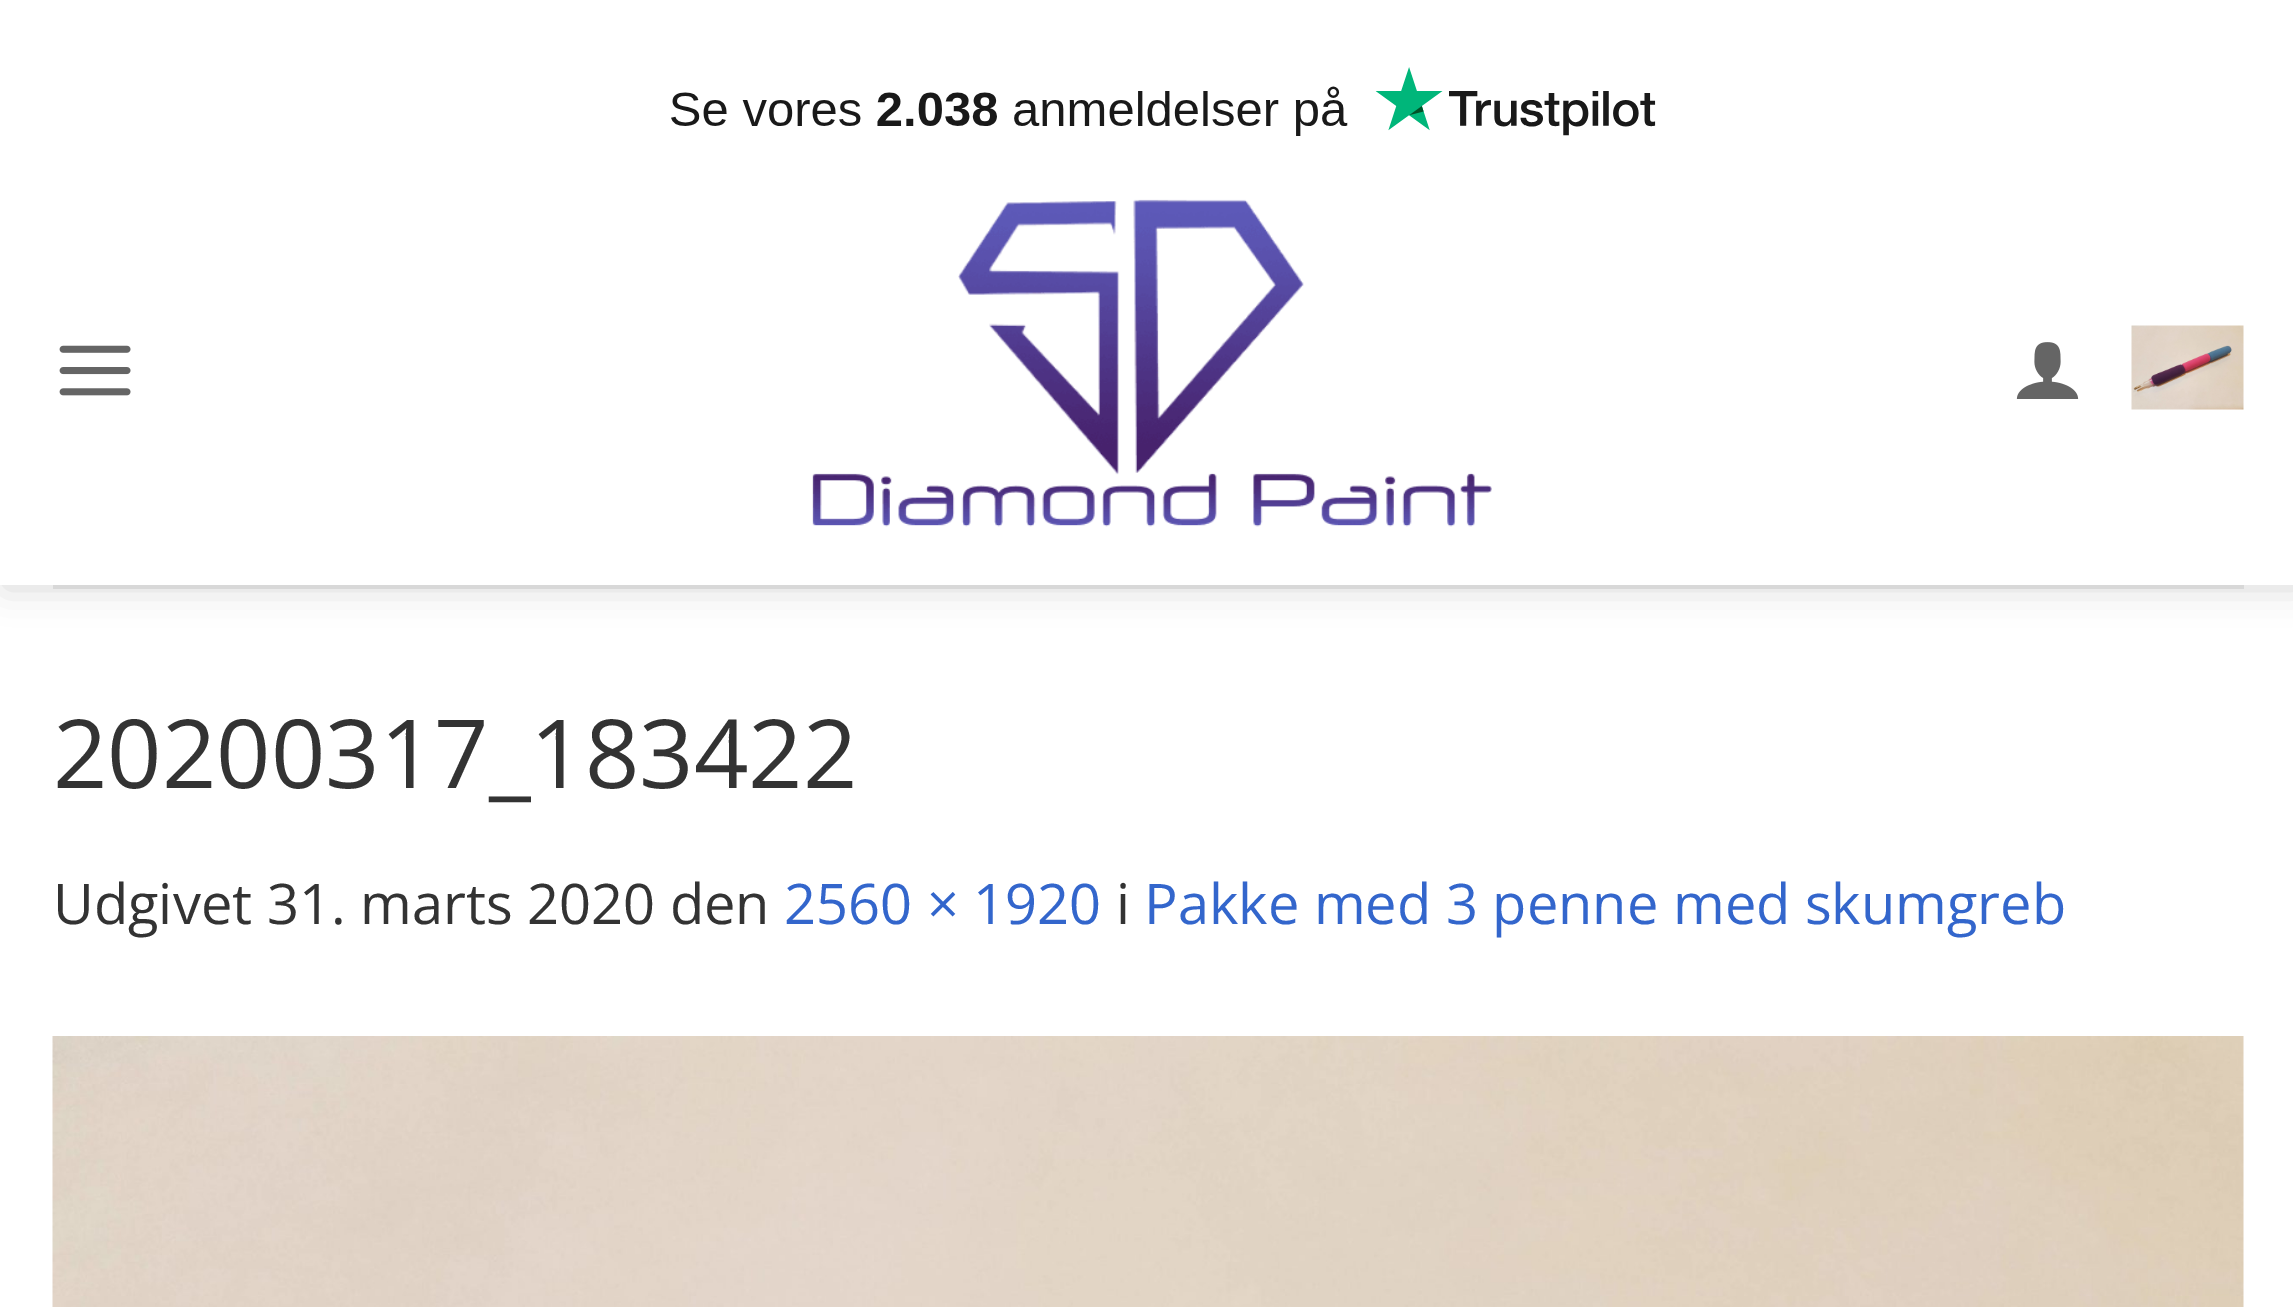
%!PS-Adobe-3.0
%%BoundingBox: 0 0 2293 1307
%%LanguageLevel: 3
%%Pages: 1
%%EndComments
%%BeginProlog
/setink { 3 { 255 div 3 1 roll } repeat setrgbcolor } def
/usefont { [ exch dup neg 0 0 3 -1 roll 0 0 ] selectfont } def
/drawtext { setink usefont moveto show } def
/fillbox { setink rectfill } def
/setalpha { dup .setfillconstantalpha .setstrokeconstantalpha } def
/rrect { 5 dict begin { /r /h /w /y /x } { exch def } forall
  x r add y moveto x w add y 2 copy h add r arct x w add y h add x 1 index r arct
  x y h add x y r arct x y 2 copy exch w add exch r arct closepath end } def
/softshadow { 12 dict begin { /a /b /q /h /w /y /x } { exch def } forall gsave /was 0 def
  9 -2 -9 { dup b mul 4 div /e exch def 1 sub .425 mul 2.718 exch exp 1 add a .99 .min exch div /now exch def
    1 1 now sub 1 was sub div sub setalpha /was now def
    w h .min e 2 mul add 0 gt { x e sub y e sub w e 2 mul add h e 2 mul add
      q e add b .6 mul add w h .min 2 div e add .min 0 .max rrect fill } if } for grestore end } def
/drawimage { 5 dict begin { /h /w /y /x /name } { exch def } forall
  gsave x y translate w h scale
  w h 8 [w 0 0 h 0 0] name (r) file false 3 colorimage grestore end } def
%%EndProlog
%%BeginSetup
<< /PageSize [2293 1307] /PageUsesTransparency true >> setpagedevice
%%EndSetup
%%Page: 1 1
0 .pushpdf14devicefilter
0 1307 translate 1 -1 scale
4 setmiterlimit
0 0 2293 1307 255 255 255 fillbox
gsave
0 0 moveto 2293 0 lineto 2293 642 lineto 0 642 lineto closepath 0 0 moveto 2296 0 lineto 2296 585 lineto 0 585 lineto closepath eoclip newpath
0 0 0 setink
4 4 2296 584 0 17.5 0.15 softshadow
grestore
(assets/img1.rgb) 671 67 985 69 drawimage
(assets/img2.rgb) 59 345 72 51 drawimage
(assets/img3.rgb) 812 199 680 328 drawimage
(assets/img4.rgb) 2016 342 63 57 drawimage
(assets/img5.rgb) 2131 325 113 85 drawimage
0.1 setalpha
53 585 2191 4 51 51 51 fillbox
0.9 setalpha
0 584 2293 1 255 255 255 fillbox
1 setalpha
(20200317_183422) 53 788 /OpenSans-Regular 95.25 51 51 51 drawtext
(Udgivet 31. marts 2020 den) 53 924 /OpenSans-Regular 56 51 51 51 drawtext
(2560 × 1920) 784 924 /OpenSans-Regular 56 51 102 204 drawtext
(i) 1116 924 /OpenSans-Regular 56 51 51 51 drawtext
(Pakke med 3 penne med skumgreb) 1144 924 /OpenSans-Regular 56 51 102 204 drawtext
(assets/img6.rgb) 52 1036 2192 271 drawimage
.poppdf14devicefilter showpage
%%EOF
